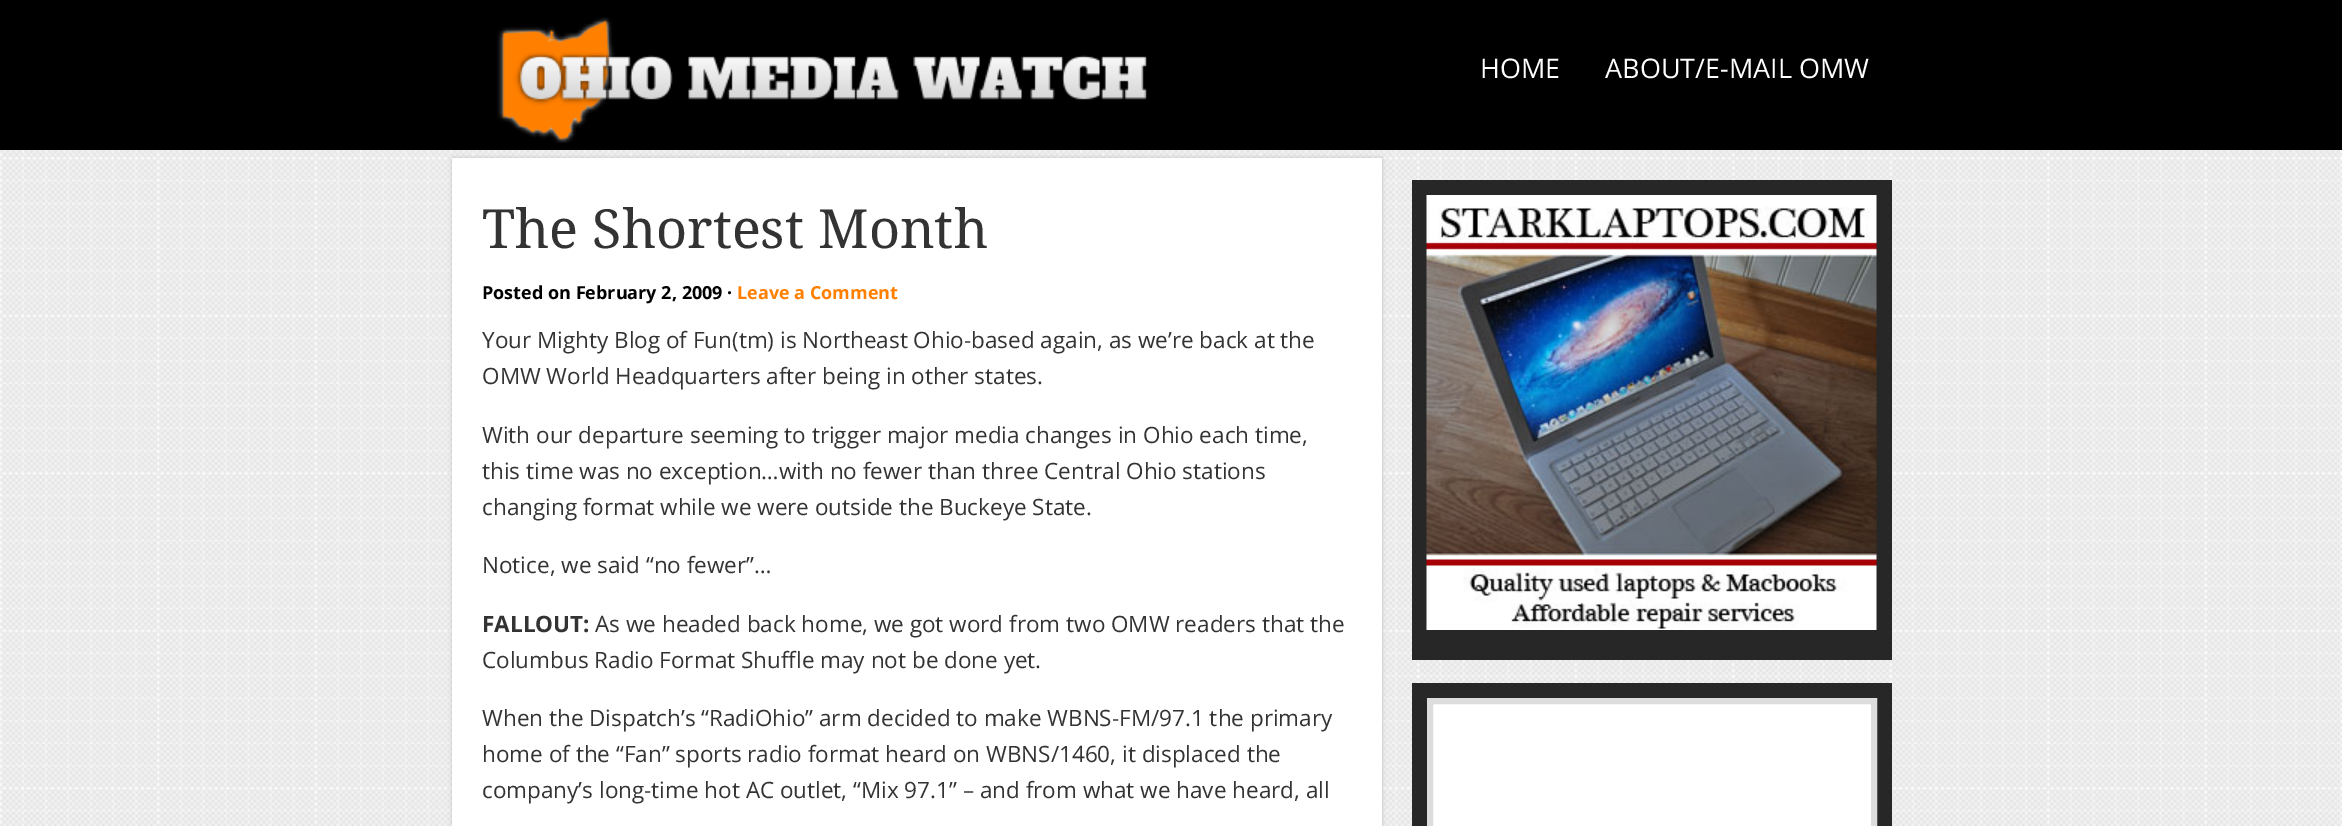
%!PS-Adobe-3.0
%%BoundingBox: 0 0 2342 826
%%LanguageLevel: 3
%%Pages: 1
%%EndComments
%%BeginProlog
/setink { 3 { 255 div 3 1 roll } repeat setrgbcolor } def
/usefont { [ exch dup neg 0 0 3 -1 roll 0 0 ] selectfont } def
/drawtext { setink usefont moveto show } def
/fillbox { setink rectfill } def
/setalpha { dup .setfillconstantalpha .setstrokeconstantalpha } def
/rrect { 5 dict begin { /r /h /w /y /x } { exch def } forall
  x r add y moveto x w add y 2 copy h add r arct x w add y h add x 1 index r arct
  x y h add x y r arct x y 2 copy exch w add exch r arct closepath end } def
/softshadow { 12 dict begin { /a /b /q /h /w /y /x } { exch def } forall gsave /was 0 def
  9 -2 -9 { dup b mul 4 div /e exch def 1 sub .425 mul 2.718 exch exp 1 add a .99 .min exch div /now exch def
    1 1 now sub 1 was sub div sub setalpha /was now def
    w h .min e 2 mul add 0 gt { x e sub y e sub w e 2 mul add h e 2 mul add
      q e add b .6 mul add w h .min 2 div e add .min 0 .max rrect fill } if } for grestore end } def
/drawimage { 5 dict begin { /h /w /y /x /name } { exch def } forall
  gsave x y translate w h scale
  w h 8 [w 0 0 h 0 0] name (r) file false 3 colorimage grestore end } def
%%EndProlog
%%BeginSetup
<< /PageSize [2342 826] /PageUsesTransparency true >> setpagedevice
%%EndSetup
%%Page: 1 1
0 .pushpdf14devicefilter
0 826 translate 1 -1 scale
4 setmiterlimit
0 0 2342 826 255 255 255 fillbox
(assets/img1.rgb) 0 150 2342 676 drawimage
0 0 2342 150 0 0 0 fillbox
(assets/img2.rgb) 497 17 650 126 drawimage
(HOME) 1480 78 /OpenSans-Regular 27 255 255 255 drawtext
(ABOUT/E-MAIL OMW) 1605 78 /OpenSans-Regular 27 255 255 255 drawtext
187 187 187 setink
452 158 930 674 0 2 1 softshadow
452 158 930 668 255 255 255 fillbox
(The Shortest Month) 482 248 /DroidSerif-Regular 54 51 51 51 drawtext
(Posted on February 2, 2009 ·) 482 299 /OpenSans-Bold 18 0 0 0 drawtext
(Leave a Comment) 737 299 /OpenSans-Bold 18 255 128 0 drawtext
(Your Mighty Blog of Fun\(tm\) is Northeast Ohio-based again, as we’re back at the) 482 348 /OpenSans-Regular 22.5 51 51 51 drawtext
(OMW World Headquarters after being in other states.) 482 384 /OpenSans-Regular 22.5 51 51 51 drawtext
(With our departure seeming to trigger major media changes in Ohio each time,) 482 443 /OpenSans-Regular 22.5 51 51 51 drawtext
(this time was no exception…with no fewer than three Central Ohio stations) 482 479 /OpenSans-Regular 22.5 51 51 51 drawtext
(changing format while we were outside the Buckeye State.) 482 515 /OpenSans-Regular 22.5 51 51 51 drawtext
(Notice, we said “no fewer”…) 482 573 /OpenSans-Regular 22.5 51 51 51 drawtext
(FALLOUT:) 482 632 /OpenSans-Bold 22.5 51 51 51 drawtext
(As we headed back home, we got word from two OMW readers that the) 595 632 /OpenSans-Regular 22.5 51 51 51 drawtext
(Columbus Radio Format Shuffle may not be done yet.) 482 668 /OpenSans-Regular 22.5 51 51 51 drawtext
(When the Dispatch’s “RadiOhio” arm decided to make WBNS-FM/97.1 the primary) 482 726 /OpenSans-Regular 22.5 51 51 51 drawtext
(home of the “Fan” sports radio format heard on WBNS/1460, it displaced the) 482 762 /OpenSans-Regular 22.5 51 51 51 drawtext
(company’s long-time hot AC outlet, “Mix 97.1” – and from what we have heard, all) 482 798 /OpenSans-Regular 22.5 51 51 51 drawtext
1412 180 480 480 39 39 39 fillbox
(assets/img3.rgb) 1426 195 451 435 drawimage
1412 683 480 143 39 39 39 fillbox
255 255 255 setink
1430 701 moveto 1874 701 lineto 1874 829 lineto 1430 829 lineto closepath gsave fill grestore
221 221 221 setink
6 setlinewidth
stroke
.poppdf14devicefilter showpage
%%EOF
